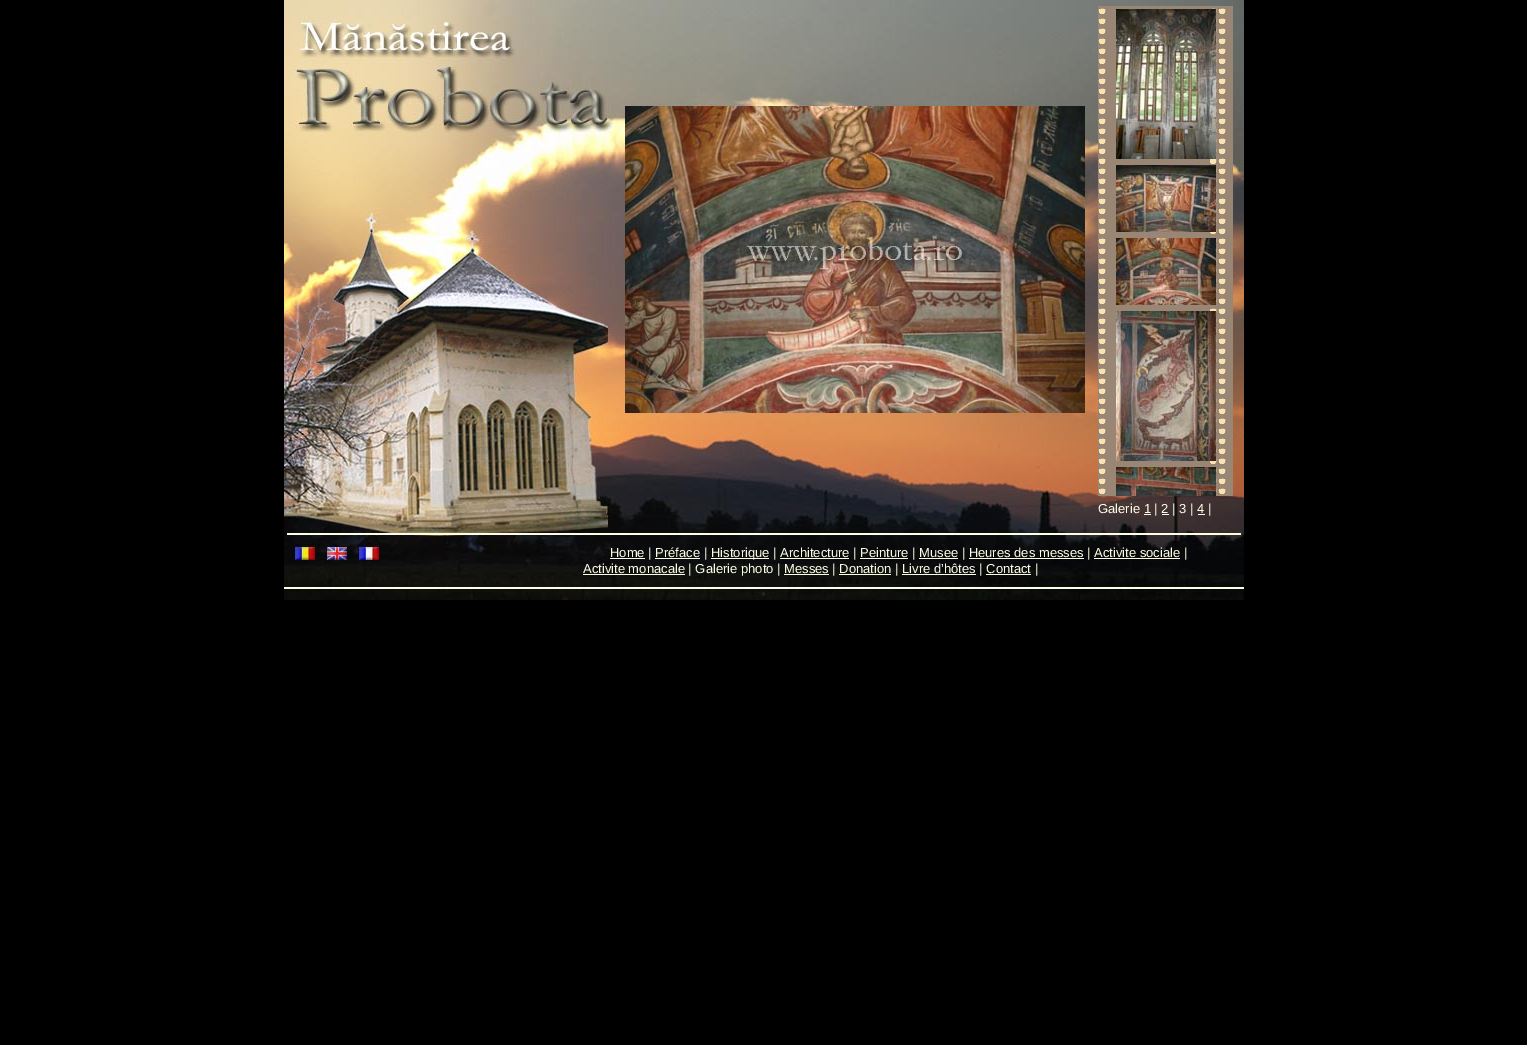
%!PS-Adobe-3.0
%%BoundingBox: 0 0 1527 1045
%%LanguageLevel: 3
%%Pages: 1
%%EndComments
%%BeginProlog
/setink { 3 { 255 div 3 1 roll } repeat setrgbcolor } def
/usefont { [ exch dup neg 0 0 3 -1 roll 0 0 ] selectfont } def
/drawtext { setink usefont moveto show } def
/fillbox { setink rectfill } def
/drawimage { 5 dict begin { /h /w /y /x /name } { exch def } forall
  gsave x y translate w h scale
  w h 8 [w 0 0 h 0 0] name (r) file false 3 colorimage grestore end } def
%%EndProlog
%%BeginSetup
<< /PageSize [1527 1045] >> setpagedevice
%%EndSetup
%%Page: 1 1
0 1045 translate 1 -1 scale
4 setmiterlimit
0 0 1527 1045 0 0 0 fillbox
(assets/img1.rgb) 284 0 960 600 drawimage
(assets/img2.rgb) 625 106 460 307 drawimage
(assets/img3.rgb) 1098 6 135 490 drawimage
(assets/img4.rgb) 1116 9 100 150 drawimage
(assets/img5.rgb) 1116 165 100 67 drawimage
(assets/img6.rgb) 1116 238 100 67 drawimage
(assets/img7.rgb) 1116 311 100 150 drawimage
(assets/img8.rgb) 1116 467 100 29 drawimage
(Galerie 1 | 2 | 3 | 4 |) 1098 513 /LiberationSans-Regular 13 254 254 230 drawtext
1144 514 7 1 254 254 230 fillbox
1162 514 7 1 254 254 230 fillbox
1198 514 7 1 254 254 230 fillbox
287 533 954 2 254 254 230 fillbox
(assets/img9.rgb) 295 547 20 13 drawimage
(assets/img10.rgb) 327 547 20 13 drawimage
(assets/img11.rgb) 359 547 20 13 drawimage
610 558 35 1 254 254 230 fillbox
(Home | Préface |) 610 557 /LiberationSans-Regular 13 254 254 230 drawtext
655 558 45 1 254 254 230 fillbox
711 558 58 1 254 254 230 fillbox
(Historique | Architecture | Peinture | Musee | Heures des messes | Activite sociale |) 711 557 /LiberationSans-Regular 13 254 254 230 drawtext
780 558 69 1 254 254 230 fillbox
860 558 48 1 254 254 230 fillbox
919 558 39 1 254 254 230 fillbox
969 558 115 1 254 254 230 fillbox
1094 558 86 1 254 254 230 fillbox
583 574 102 1 254 254 230 fillbox
(Activite monacale | Galerie photo | Messes | Donation | Livre d’hôtes | Contact |) 583 573 /LiberationSans-Regular 13 254 254 230 drawtext
784 574 45 1 254 254 230 fillbox
839 574 52 1 254 254 230 fillbox
902 574 74 1 254 254 230 fillbox
986 574 45 1 254 254 230 fillbox
284 587 960 2 254 254 230 fillbox
showpage
%%EOF
